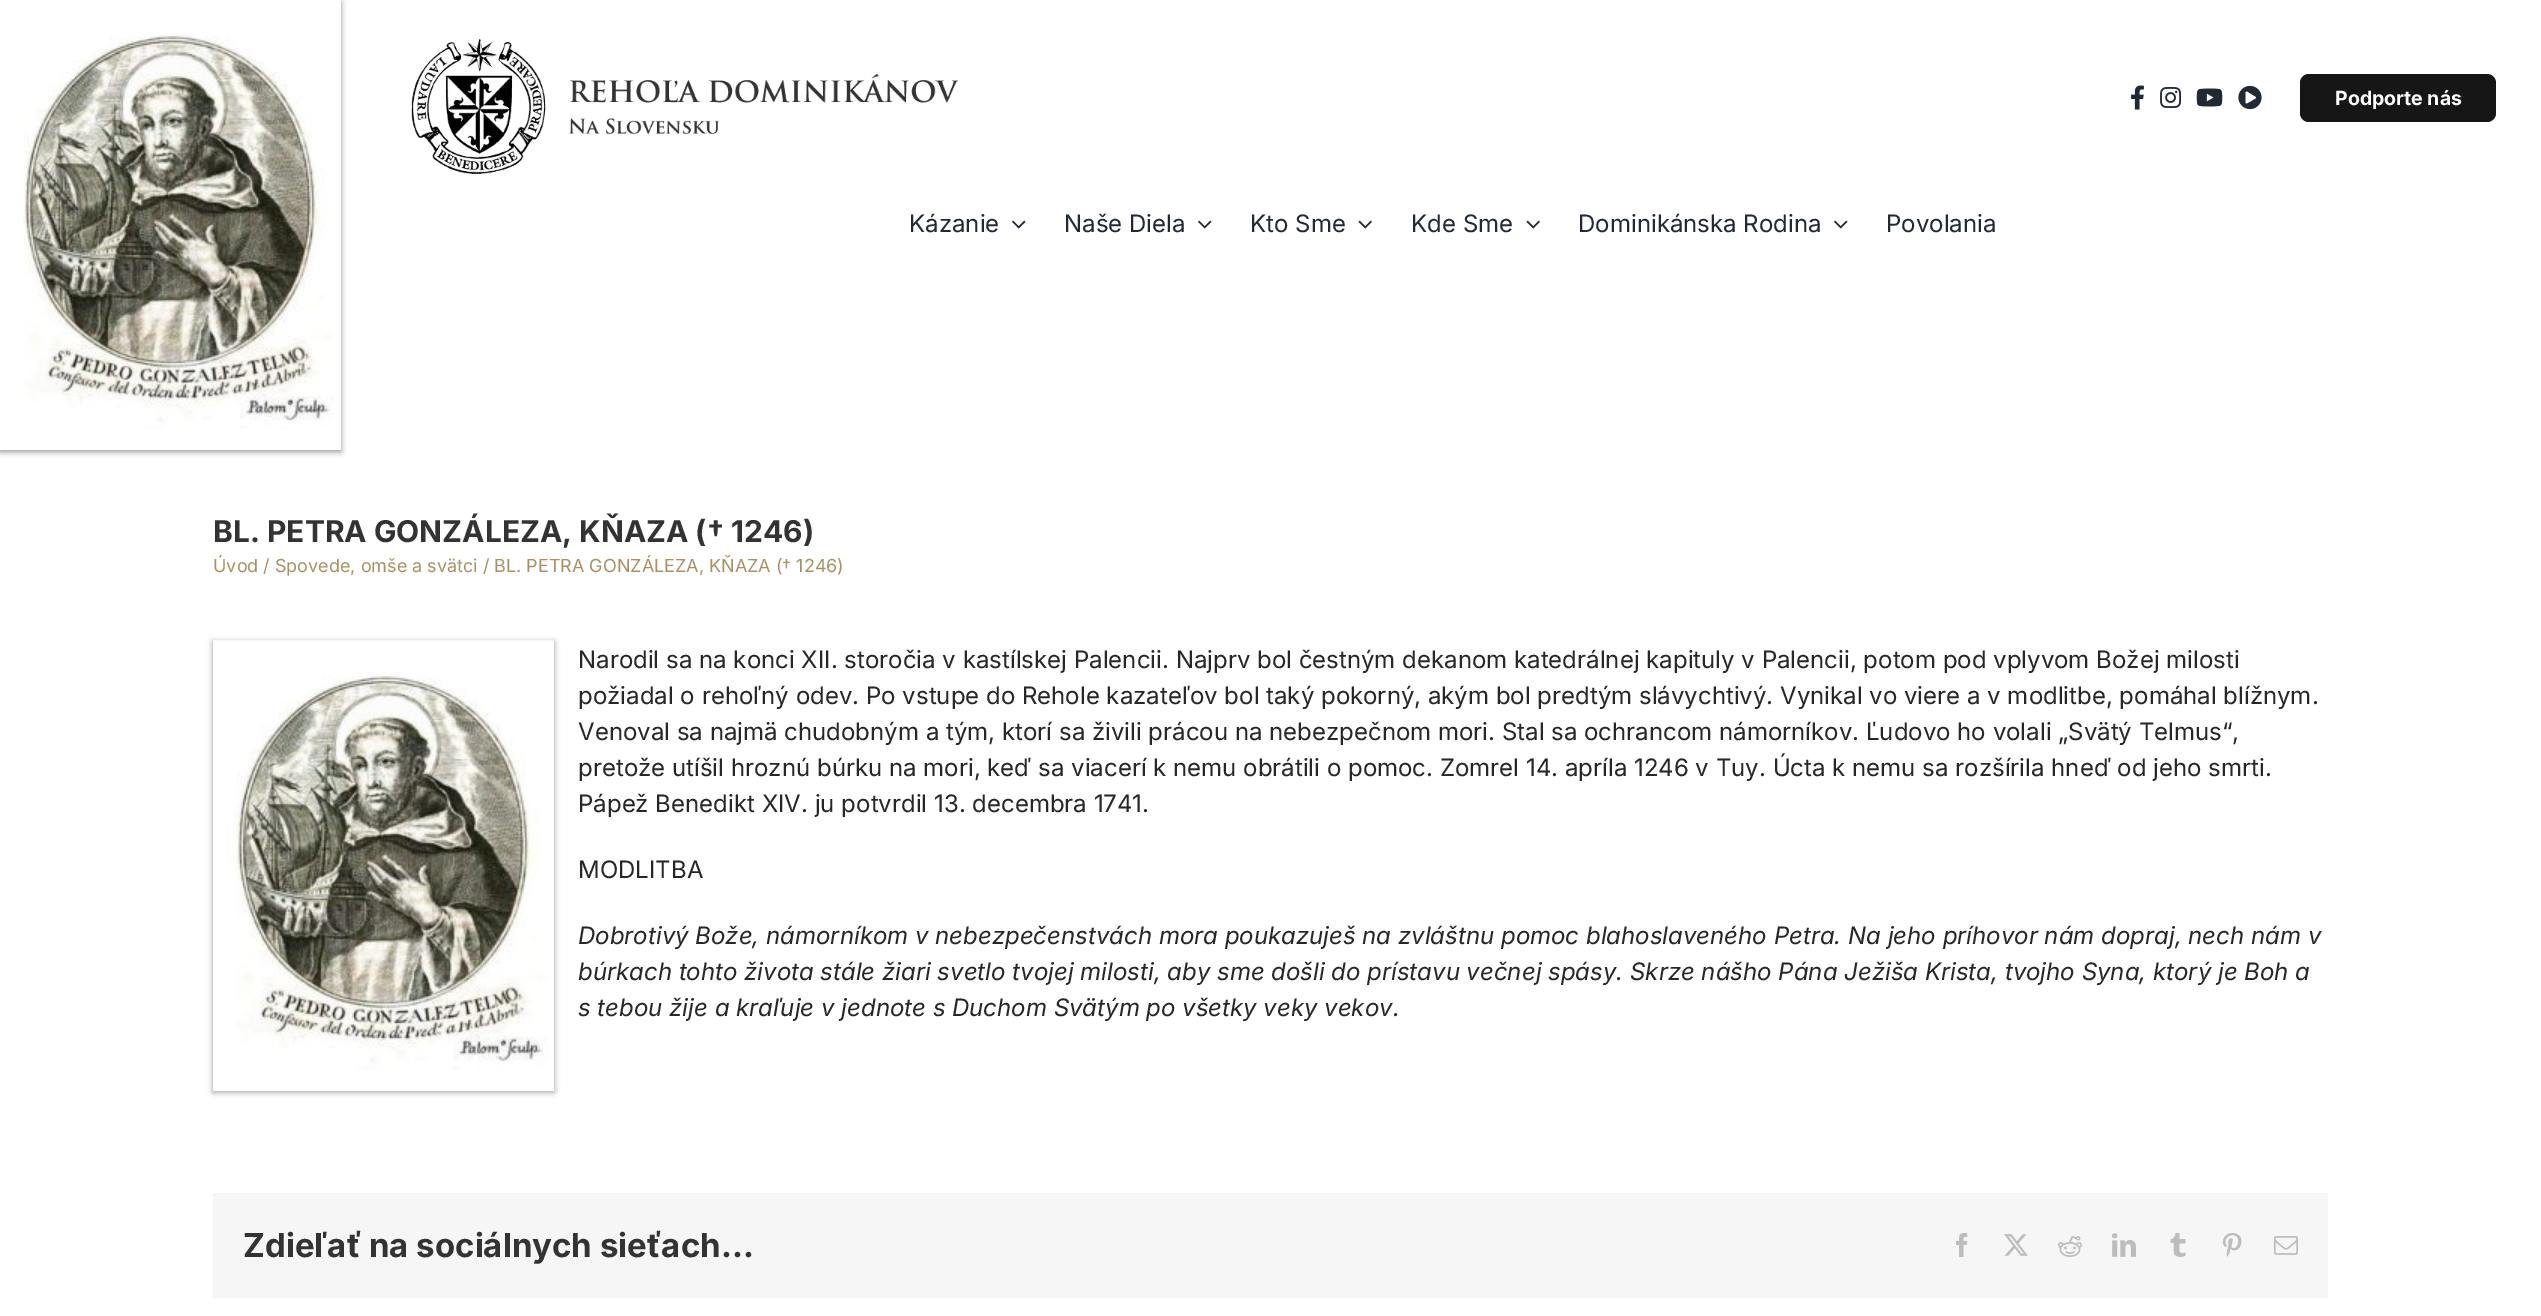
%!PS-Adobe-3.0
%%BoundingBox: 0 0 2541 1316
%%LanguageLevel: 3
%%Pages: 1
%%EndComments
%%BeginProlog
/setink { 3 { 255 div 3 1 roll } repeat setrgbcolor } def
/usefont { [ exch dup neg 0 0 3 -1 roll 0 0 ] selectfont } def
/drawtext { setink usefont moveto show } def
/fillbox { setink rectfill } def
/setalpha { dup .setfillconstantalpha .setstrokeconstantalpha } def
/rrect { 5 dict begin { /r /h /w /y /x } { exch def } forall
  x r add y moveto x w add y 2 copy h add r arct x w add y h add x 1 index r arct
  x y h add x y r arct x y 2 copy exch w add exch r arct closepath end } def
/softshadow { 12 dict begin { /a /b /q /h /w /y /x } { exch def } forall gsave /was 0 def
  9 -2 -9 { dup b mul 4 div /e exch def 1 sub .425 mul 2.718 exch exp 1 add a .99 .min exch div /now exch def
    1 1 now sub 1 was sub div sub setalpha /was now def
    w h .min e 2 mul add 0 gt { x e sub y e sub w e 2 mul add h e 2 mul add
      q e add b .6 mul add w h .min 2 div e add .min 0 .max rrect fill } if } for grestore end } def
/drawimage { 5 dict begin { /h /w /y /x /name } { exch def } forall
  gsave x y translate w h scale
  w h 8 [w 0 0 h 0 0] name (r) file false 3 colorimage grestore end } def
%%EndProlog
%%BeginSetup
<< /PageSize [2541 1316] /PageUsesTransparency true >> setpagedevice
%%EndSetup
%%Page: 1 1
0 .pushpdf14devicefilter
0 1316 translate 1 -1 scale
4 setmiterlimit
0 0 2541 1316 255 255 255 fillbox
0 0 0 setink
0 2 341 450 0 3 0.4 softshadow
0 0 341 450 255 255 255 fillbox
(assets/img1.rgb) 23 33 311 396 drawimage
(assets/img2.rgb) 411 38 548 136 drawimage
(assets/img3.rgb) 2131 85 13 25 drawimage
(assets/img4.rgb) 2160 87 22 21 drawimage
(assets/img5.rgb) 2196 88 27 19 drawimage
(assets/img6.rgb) 2238 85 24 25 drawimage
22 22 22 setink
2300 74 196 48 9 rrect fill
(Podporte nás) 2335 105 /Inter-Bold 19.5 255 255 255 drawtext
(Kázanie) 909 232 /Inter-Regular 24 33 41 52 drawtext
(assets/img7.rgb) 1012 220 14 9 drawimage
(Naše Diela) 1064 232 /Inter-Regular 24 33 41 52 drawtext
(assets/img7.rgb) 1198 220 14 9 drawimage
(Kto Sme) 1250 232 /Inter-Regular 24 33 41 52 drawtext
(assets/img8.rgb) 1358 220 14 9 drawimage
(Kde Sme) 1411 232 /Inter-Regular 24 33 41 52 drawtext
(assets/img8.rgb) 1526 220 14 9 drawimage
(Dominikánska Rodina) 1578 232 /Inter-Regular 24 33 41 52 drawtext
(assets/img7.rgb) 1834 220 14 9 drawimage
(Povolania) 1886 232 /Inter-Regular 24 33 41 52 drawtext
(BL. PETRA GONZÁLEZA, KŇAZA \(† 1246\)) 213 542 /Inter-Bold 30 51 51 51 drawtext
(Úvod / Spovede, omše a svätci / BL. PETRA GONZÁLEZA, KŇAZA \(† 1246\)) 213 572 /Inter-Regular 18 171 144 99 drawtext
0 0 0 setink
213 642 341 450 0 3 0.4 softshadow
213 641 341 450 255 255 255 fillbox
(assets/img9.rgb) 213 640 340 430 drawimage
(Narodil sa na konci XII. storočia v kastílskej Palencii. Najprv bol čestným dekanom katedrálnej kapituly v Palencii, potom pod vplyvom Božej milosti) 578 668 /Inter-Regular 24 39 39 39 drawtext
(požiadal o rehoľný odev. Po vstupe do Rehole kazateľov bol taký pokorný, akým bol predtým slávychtivý. Vynikal vo viere a v modlitbe, pomáhal blížnym.) 578 704 /Inter-Regular 24 39 39 39 drawtext
(Venoval sa najmä chudobným a tým, ktorí sa živili prácou na nebezpečnom mori. Stal sa ochrancom námorníkov. Ľudovo ho volali „Svätý Telmus“,) 578 740 /Inter-Regular 24 39 39 39 drawtext
(pretože utíšil hroznú búrku na mori, keď sa viacerí k nemu obrátili o pomoc. Zomrel 14. apríla 1246 v Tuy. Úcta k nemu sa rozšírila hneď od jeho smrti.) 578 776 /Inter-Regular 24 39 39 39 drawtext
(Pápež Benedikt XIV. ju potvrdil 13. decembra 1741.) 578 812 /Inter-Regular 24 39 39 39 drawtext
(MODLITBA) 578 878 /Inter-Regular 24 39 39 39 drawtext
(Dobrotivý Bože, námorníkom v nebezpečenstvách mora poukazuješ na zvláštnu pomoc blahoslaveného Petra. Na jeho príhovor nám dopraj, nech nám v) 578 944 /Inter-Italic 24 39 39 39 drawtext
(búrkach tohto života stále žiari svetlo tvojej milosti, aby sme došli do prístavu večnej spásy. Skrze nášho Pána Ježiša Krista, tvojho Syna, ktorý je Boh a) 578 980 /Inter-Italic 24 39 39 39 drawtext
(s tebou žije a kraľuje v jednote s Duchom Svätým po všetky veky vekov.) 578 1016 /Inter-Italic 24 39 39 39 drawtext
213 1193 2115 105 246 246 246 fillbox
(Zdieľať na sociálnych sieťach...) 243 1257 /Inter-Bold 33 51 51 51 drawtext
(assets/img10.rgb) 1956 1233 12 24 drawimage
(assets/img11.rgb) 2004 1234 24 22 drawimage
(assets/img12.rgb) 2058 1236 24 21 drawimage
(assets/img13.rgb) 2112 1233 24 24 drawimage
(assets/img14.rgb) 2170 1233 16 24 drawimage
(assets/img15.rgb) 2222 1233 20 24 drawimage
(assets/img16.rgb) 2274 1236 24 19 drawimage
.poppdf14devicefilter showpage
%%EOF
